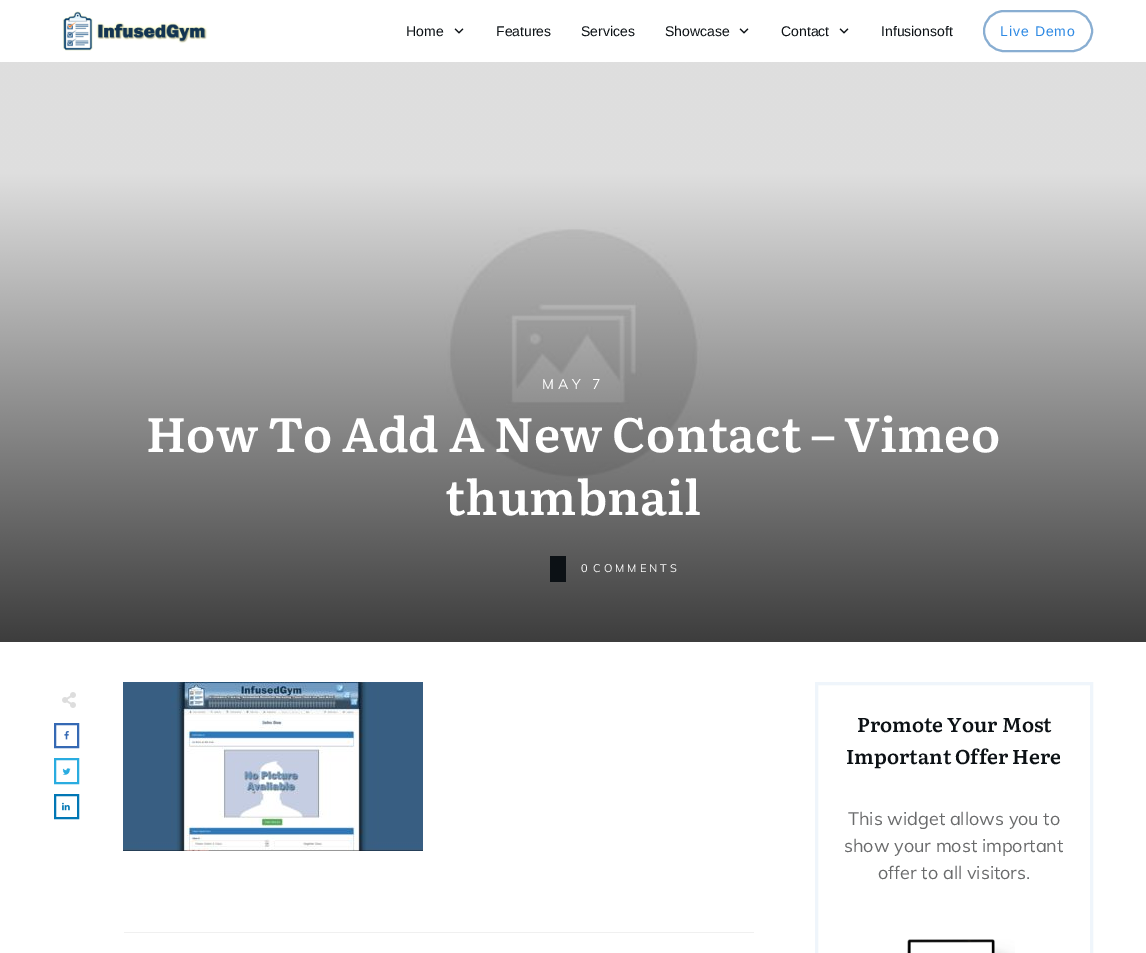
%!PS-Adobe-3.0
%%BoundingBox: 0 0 1146 953
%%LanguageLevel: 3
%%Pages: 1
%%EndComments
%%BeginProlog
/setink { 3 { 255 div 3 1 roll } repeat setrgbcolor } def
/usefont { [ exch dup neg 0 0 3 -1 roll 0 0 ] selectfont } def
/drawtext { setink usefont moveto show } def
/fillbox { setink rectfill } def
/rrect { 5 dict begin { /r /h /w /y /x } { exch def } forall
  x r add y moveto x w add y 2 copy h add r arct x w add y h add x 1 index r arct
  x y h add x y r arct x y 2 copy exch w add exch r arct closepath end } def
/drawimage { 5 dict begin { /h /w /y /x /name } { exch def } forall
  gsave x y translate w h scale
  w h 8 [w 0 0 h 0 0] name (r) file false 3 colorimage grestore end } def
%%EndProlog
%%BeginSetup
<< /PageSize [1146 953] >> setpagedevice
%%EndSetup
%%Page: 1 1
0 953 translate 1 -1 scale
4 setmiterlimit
0 0 1146 953 255 255 255 fillbox
(assets/img1.rgb) 62 11 146 40 drawimage
(Home) 406 36 /LiberationSans-Regular 14 12 17 21 drawtext
(assets/img2.rgb) 454 28 10 6 drawimage
(Features) 496 36 /LiberationSans-Regular 14 12 17 21 drawtext
(Services) 581 36 /LiberationSans-Regular 14 12 17 21 drawtext
(Showcase) 665 36 /LiberationSans-Regular 14 12 17 21 drawtext
(assets/img2.rgb) 739 28 10 6 drawimage
gsave
781 17 48 28 rectclip
(Contact) 781 36 /LiberationSans-Regular 14 12 17 21 drawtext
grestore
(assets/img2.rgb) 839 28 10 6 drawimage
(Infusionsoft) 881 36 /LiberationSans-Regular 14 12 17 21 drawtext
137 174 210 setink
2 setlinewidth
984 11 108 40 20 rrect stroke
47 138 228 setink
1000 36 moveto 1 0 (Live Demo) ashow
(assets/img3.rgb) 0 62 1146 580 drawimage
/Muli-Regular 14 usefont
255 255 255 setink
542 389 moveto 4 0 (MAY 7) ashow
(How To Add A New Contact – Vimeo) 146 452 /Literata-SemiBold 48 255 255 255 drawtext
(thumbnail) 445 515 /Literata-SemiBold 48 255 255 255 drawtext
550 556 16 26 12 17 21 fillbox
(0) 581 572 /Muli-Regular 11 255 255 255 drawtext
593 572 moveto 3 0 (COMMENTS) ashow
(assets/img4.rgb) 62 692 14 16 drawimage
53 105 180 setink
55 724 23 23 rectstroke
(assets/img5.rgb) 64 731 5 9 drawimage
41 172 224 setink
55 759 23 24 rectstroke
(assets/img6.rgb) 62 768 9 7 drawimage
1 119 181 setink
55 795 23 23 rectstroke
(assets/img7.rgb) 62 802 8 9 drawimage
(assets/img8.rgb) 123 682 300 169 drawimage
124 932 630 1 240 240 240 fillbox
239 245 251 setink
3 setlinewidth
816.5 683.5 275 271 rectstroke
(Promote Your Most) 857 732 /Literata-SemiBold 20 12 17 21 drawtext
(Important Offer Here) 846 764 /Literata-SemiBold 20 12 17 21 drawtext
(This widget allows you to) 848 825 /Muli-Regular 18 106 107 108 drawtext
(show your most important) 844 852 /Muli-Regular 18 106 107 108 drawtext
(offer to all visitors.) 878 879 /Muli-Regular 18 106 107 108 drawtext
(assets/img9.rgb) 907 939 108 14 drawimage
showpage
%%EOF
